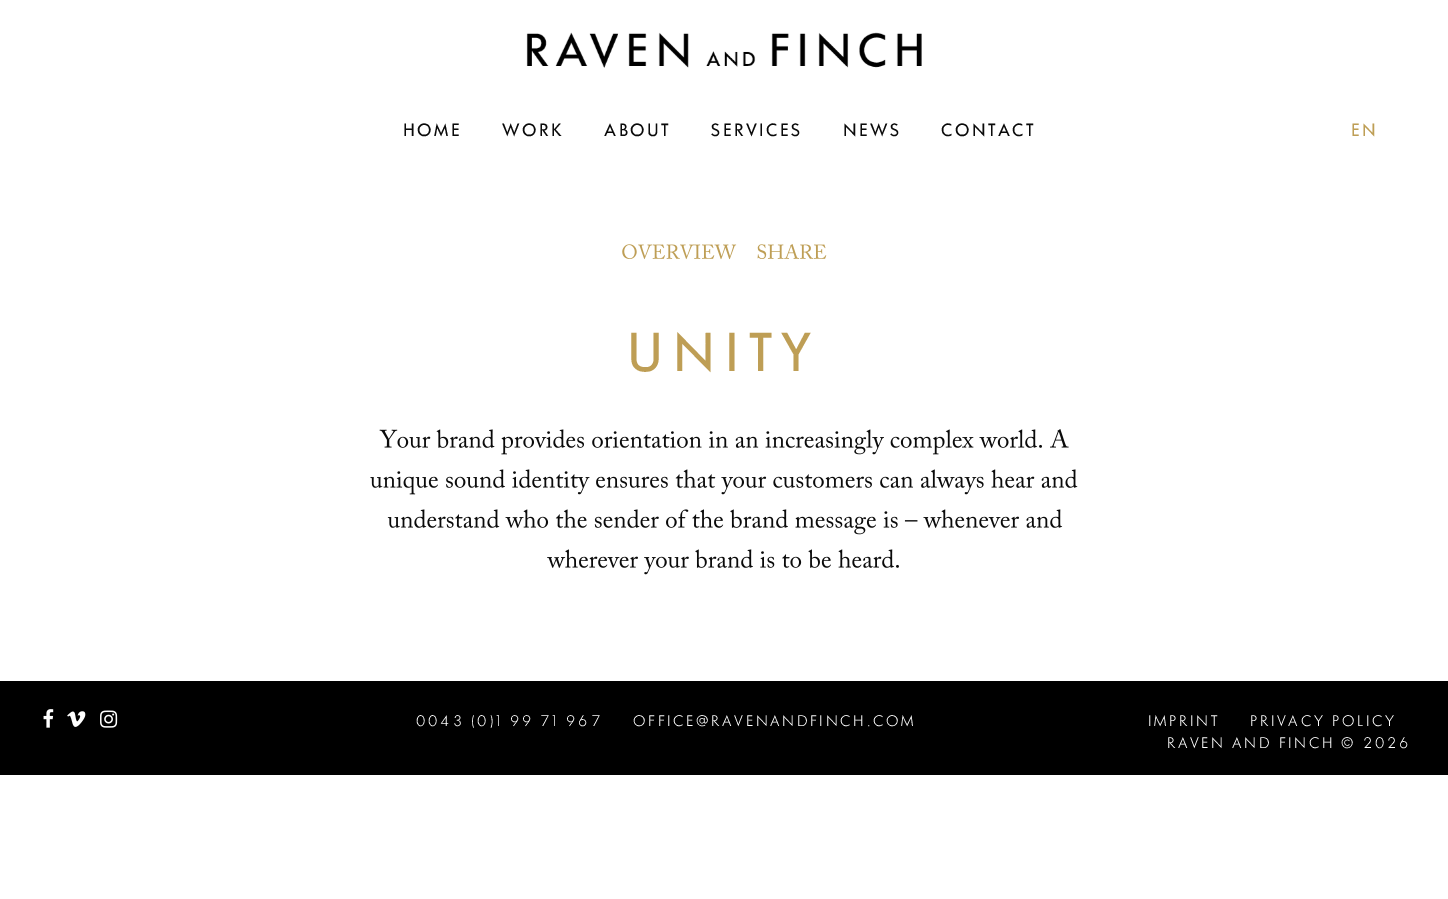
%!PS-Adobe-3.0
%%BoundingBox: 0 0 1448 899
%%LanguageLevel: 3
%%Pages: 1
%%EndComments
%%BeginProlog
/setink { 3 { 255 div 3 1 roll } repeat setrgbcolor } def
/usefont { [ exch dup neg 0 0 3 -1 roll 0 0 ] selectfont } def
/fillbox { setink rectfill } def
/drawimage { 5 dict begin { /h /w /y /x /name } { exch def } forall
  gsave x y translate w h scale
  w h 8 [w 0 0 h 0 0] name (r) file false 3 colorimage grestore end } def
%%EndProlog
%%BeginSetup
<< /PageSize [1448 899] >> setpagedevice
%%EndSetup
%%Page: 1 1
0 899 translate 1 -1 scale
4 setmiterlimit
0 0 1448 899 255 255 255 fillbox
(assets/img1.rgb) 526 32 396 36 drawimage
/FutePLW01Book-Regular 16.25 usefont
10 10 10 setink
403 136 moveto 2.5 0 (HOME) ashow
502 136 moveto 2.5 0 (WORK) ashow
604 136 moveto 2.5 0 (ABOUT) ashow
711 136 moveto 2.5 0 (SERVICES) ashow
843 136 moveto 2.5 0 (NEWS) ashow
941 136 moveto 2.5 0 (CONTACT) ashow
190 158 85 setink
1351 136 moveto 2.5 0 (EN) ashow
(assets/img2.rgb) 622 244 115 16 drawimage
(assets/img3.rgb) 757 244 70 15 drawimage
/FutePLW01Book-Regular 50 usefont
627 371 moveto 10 0 (UNITY) ashow
(assets/img4.rgb) 379 429 690 26 drawimage
(assets/img5.rgb) 370 469 708 26 drawimage
(assets/img6.rgb) 387 509 676 26 drawimage
(assets/img7.rgb) 547 549 352 26 drawimage
0 681 1448 94 0 0 0 fillbox
(assets/img8.rgb) 43 709 11 19 drawimage
(assets/img9.rgb) 67 711 19 16 drawimage
(assets/img10.rgb) 100 710 18 18 drawimage
/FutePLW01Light-Light 14 usefont
255 255 255 setink
416 726 moveto 2.8 0 (0043 \(0\)1 99 71 967) ashow
633 726 moveto 2.8 0 (OFFICE@RAVENANDFINCH.COM) ashow
1148 726 moveto 2.8 0 (IMPRINT) ashow
1250 726 moveto 2.8 0 (PRIVACY POLICY) ashow
1167 748 moveto 2.8 0 (RAVEN AND FINCH © 2026) ashow
showpage
%%EOF
